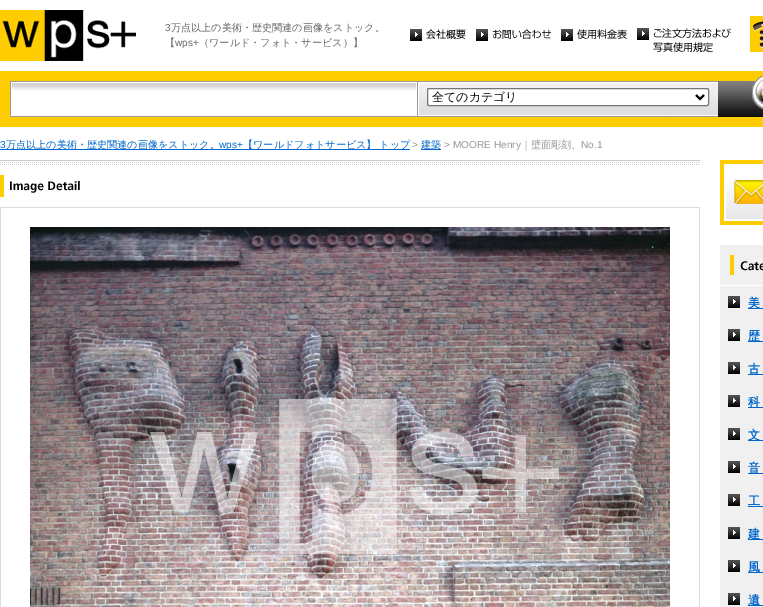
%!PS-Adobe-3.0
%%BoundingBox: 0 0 763 607
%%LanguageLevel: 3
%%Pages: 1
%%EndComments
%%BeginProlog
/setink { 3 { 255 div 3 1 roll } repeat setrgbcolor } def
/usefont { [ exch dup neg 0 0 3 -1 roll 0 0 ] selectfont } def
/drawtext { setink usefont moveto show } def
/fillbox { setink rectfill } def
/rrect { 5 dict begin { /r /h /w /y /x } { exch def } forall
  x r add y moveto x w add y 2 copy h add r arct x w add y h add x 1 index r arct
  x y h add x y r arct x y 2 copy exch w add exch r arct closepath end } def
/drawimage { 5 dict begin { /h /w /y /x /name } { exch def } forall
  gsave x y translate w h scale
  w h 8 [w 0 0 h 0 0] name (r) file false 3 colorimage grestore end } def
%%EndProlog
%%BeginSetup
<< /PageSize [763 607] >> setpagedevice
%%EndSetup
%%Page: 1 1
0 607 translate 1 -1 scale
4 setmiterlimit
0 0 763 607 255 255 255 fillbox
(assets/img1.rgb) 0 10 136 51 drawimage
(3) 165 31 /LiberationSans-Regular 10.1 102 102 102 drawtext
(万点以上の美術・歴史関連の画像をストック。) 171 31 /WenQuanYiZenHei-Medium 10.1 102 102 102 drawtext
(【) 165 46 /WenQuanYiZenHei-Medium 10.1 102 102 102 drawtext
(wps+) 175 46 /LiberationSans-Regular 10.1 102 102 102 drawtext
(（ワールド・フォト・サービス）】) 199 46 /WenQuanYiZenHei-Medium 10.1 102 102 102 drawtext
(assets/img2.rgb) 410 29 56 12 drawimage
(assets/img3.rgb) 476 29 75 12 drawimage
(assets/img4.rgb) 561 29 66 12 drawimage
(assets/img5.rgb) 637 28 94 24 drawimage
(assets/img6.rgb) 750 16 13 36 drawimage
0 71 763 56 255 204 0 fillbox
(assets/img7.rgb) 10 81 407 36 drawimage
(assets/img8.rgb) 417 81 301 36 drawimage
255 255 255 setink
427.5 88.5 281 17 1.5 rrect gsave fill grestore
118 118 118 setink
stroke
0 0 0 setink
2 setlinewidth
696 95 moveto 700 99 lineto 704 95 lineto stroke
(全てのカテゴリ) 432 101 /WenQuanYiZenHei-Medium 12 0 0 0 drawtext
(assets/img9.rgb) 718 74 45 47 drawimage
(3) 0 148 /LiberationSans-Regular 10.1 0 102 204 drawtext
0 149 410 1 0 102 204 fillbox
(万点以上の美術・歴史関連の画像をストック。) 6 148 /WenQuanYiZenHei-Medium 10.1 0 102 204 drawtext
(wps+) 219 148 /LiberationSans-Regular 10.1 0 102 204 drawtext
(【ワールドフォトサービス】 トップ) 243 148 /WenQuanYiZenHei-Medium 10.1 0 102 204 drawtext
(>) 412 148 /LiberationSans-Regular 10.1 153 153 153 drawtext
421 149 20 1 0 102 204 fillbox
(建築) 421 148 /WenQuanYiZenHei-Medium 10.1 0 102 204 drawtext
(> MOORE Henry) 444 148 /LiberationSans-Regular 10.1 153 153 153 drawtext
(｜壁面彫刻、) 521 148 /WenQuanYiZenHei-Medium 10.1 153 153 153 drawtext
(No.1) 581 148 /LiberationSans-Regular 10.1 153 153 153 drawtext
(assets/img10.rgb) 0 160 700 5 drawimage
0 175 4 22 255 204 0 fillbox
(assets/img11.rgb) 10 181 70 12 drawimage
0 207 700 1 220 220 220 fillbox
699 207 1 400 220 220 220 fillbox
0 207 1 400 220 220 220 fillbox
(assets/img12.rgb) 30 227 640 380 drawimage
(assets/img13.rgb) 720 160 43 65 drawimage
(assets/img14.rgb) 720 245 43 40 drawimage
720 286 43 321 240 240 240 fillbox
(assets/img15.rgb) 728 296 12 12 drawimage
748 308 15 1 0 102 204 fillbox
(美) 748 307 /WenQuanYiZenHei-Bold 12 0 102 204 drawtext
(assets/img15.rgb) 728 329 12 12 drawimage
748 341 15 1 0 102 204 fillbox
(歴) 748 340 /WenQuanYiZenHei-Bold 12 0 102 204 drawtext
(assets/img15.rgb) 728 362 12 12 drawimage
748 374 15 1 0 102 204 fillbox
(古) 748 373 /WenQuanYiZenHei-Bold 12 0 102 204 drawtext
(assets/img15.rgb) 728 395 12 12 drawimage
748 407 15 1 0 102 204 fillbox
(科) 748 406 /WenQuanYiZenHei-Bold 12 0 102 204 drawtext
(assets/img15.rgb) 728 428 12 12 drawimage
748 440 15 1 0 102 204 fillbox
(文) 748 439 /WenQuanYiZenHei-Bold 12 0 102 204 drawtext
(assets/img15.rgb) 728 461 12 12 drawimage
748 473 15 1 0 102 204 fillbox
(音) 748 472 /WenQuanYiZenHei-Bold 12 0 102 204 drawtext
(assets/img15.rgb) 728 494 12 12 drawimage
(工) 748 505 /WenQuanYiZenHei-Bold 12 0 102 204 drawtext
748 506 15 1 0 102 204 fillbox
(assets/img15.rgb) 728 527 12 12 drawimage
748 539 15 1 0 102 204 fillbox
(建) 748 538 /WenQuanYiZenHei-Bold 12 0 102 204 drawtext
(assets/img15.rgb) 728 560 12 12 drawimage
748 572 15 1 0 102 204 fillbox
(風) 748 571 /WenQuanYiZenHei-Bold 12 0 102 204 drawtext
(assets/img15.rgb) 728 593 12 12 drawimage
748 605 15 1 0 102 204 fillbox
(遺) 748 604 /WenQuanYiZenHei-Bold 12 0 102 204 drawtext
showpage
%%EOF
